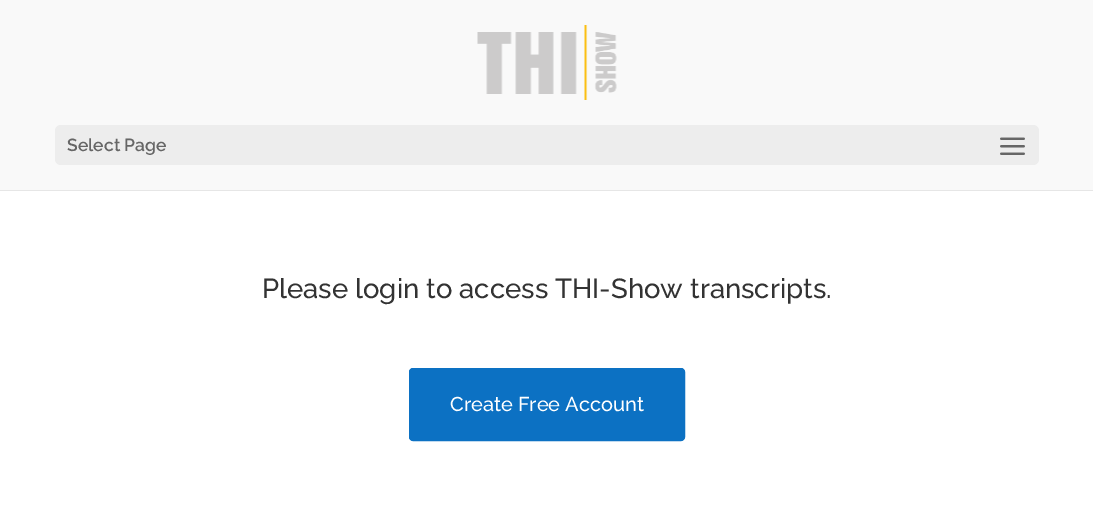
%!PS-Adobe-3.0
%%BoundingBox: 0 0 1093 521
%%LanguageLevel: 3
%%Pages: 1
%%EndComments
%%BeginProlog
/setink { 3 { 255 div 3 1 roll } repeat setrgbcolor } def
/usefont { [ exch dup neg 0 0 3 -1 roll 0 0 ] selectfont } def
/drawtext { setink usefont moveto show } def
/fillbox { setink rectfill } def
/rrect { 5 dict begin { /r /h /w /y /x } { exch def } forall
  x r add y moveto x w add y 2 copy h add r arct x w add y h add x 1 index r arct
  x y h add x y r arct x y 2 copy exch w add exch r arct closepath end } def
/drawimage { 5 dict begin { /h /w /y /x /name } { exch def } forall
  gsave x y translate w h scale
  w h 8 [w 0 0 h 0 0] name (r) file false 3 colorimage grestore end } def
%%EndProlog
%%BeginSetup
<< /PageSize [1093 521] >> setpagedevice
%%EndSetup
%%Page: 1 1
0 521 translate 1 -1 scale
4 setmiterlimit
0 0 1093 521 255 255 255 fillbox
230 230 230 setink
0 190 moveto 0 191 lineto 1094 191 lineto 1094 1 lineto 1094 190 lineto closepath fill
0 0 1093 190 249 249 249 fillbox
(assets/img1.rgb) 477 25 140 75 drawimage
237 237 237 setink
55 125 984 40 6 rrect fill
(Select Page) 67 151 /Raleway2-Thin 17.5 102 102 102 drawtext
(assets/img2.rgb) 1000 137 25 18 drawimage
(Please login to access THI-Show transcripts.) 262 298 /Raleway-Thin 27.5 51 51 51 drawtext
12 113 195 setink
409.5 368.5 275 72 3.5 rrect gsave fill grestore
stroke
(Create Free Account) 450 411 /Raleway-Thin 20 255 255 255 drawtext
showpage
%%EOF
